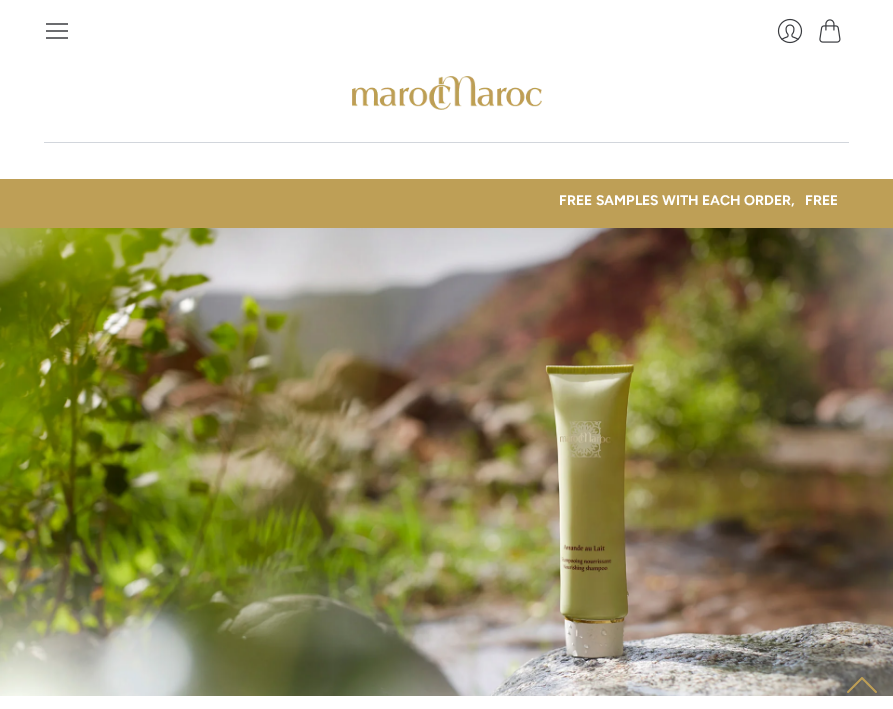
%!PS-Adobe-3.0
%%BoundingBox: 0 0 893 709
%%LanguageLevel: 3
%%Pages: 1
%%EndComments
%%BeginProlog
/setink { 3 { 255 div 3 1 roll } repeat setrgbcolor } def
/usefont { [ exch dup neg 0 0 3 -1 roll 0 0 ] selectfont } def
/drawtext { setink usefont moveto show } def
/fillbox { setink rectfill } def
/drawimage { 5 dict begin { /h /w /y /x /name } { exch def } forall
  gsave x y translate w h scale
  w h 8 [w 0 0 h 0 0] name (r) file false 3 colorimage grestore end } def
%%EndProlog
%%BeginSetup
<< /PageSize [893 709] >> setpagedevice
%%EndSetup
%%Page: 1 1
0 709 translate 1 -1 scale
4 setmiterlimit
0 0 893 709 255 255 255 fillbox
46 23 22 2 107 108 111 fillbox
46 30 22 2 107 108 111 fillbox
46 37 22 2 107 108 111 fillbox
(assets/img1.rgb) 777 18 26 26 drawimage
(assets/img2.rgb) 819 19 22 24 drawimage
44 142 805 1 210 214 220 fillbox
(assets/img3.rgb) 352 76 190 34 drawimage
0 179 893 49 190 159 86 fillbox
gsave
56 191 781 20 rectclip
(FREE SAMPLES WITH EACH ORDER,   FREE) 559 205 /Figtree-Bold 14 255 255 255 drawtext
grestore
(assets/img4.rgb) 0 228 893 468 drawimage
(assets/img5.rgb) 847 677 30 16 drawimage
showpage
%%EOF
